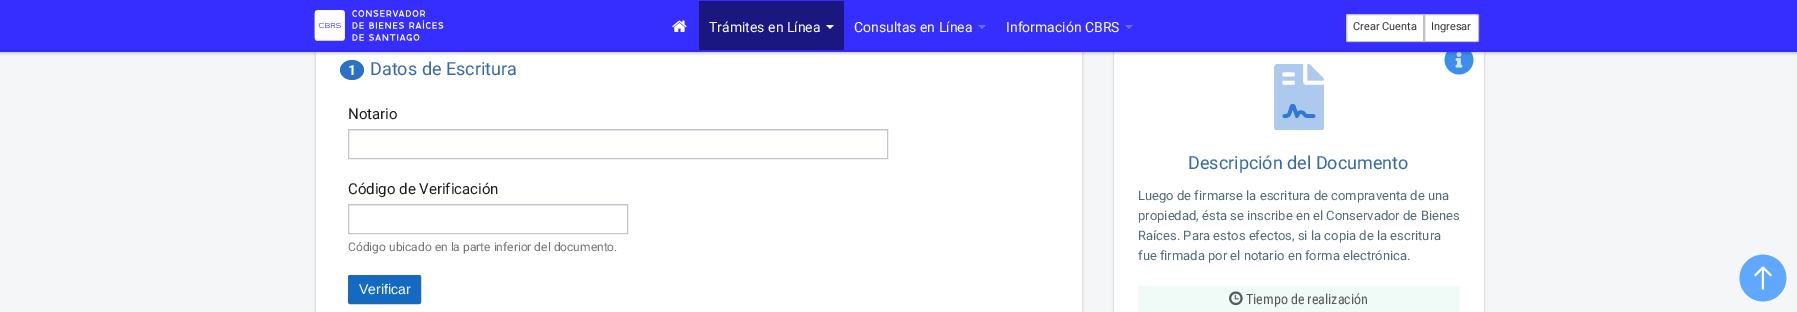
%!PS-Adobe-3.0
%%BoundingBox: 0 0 1797 312
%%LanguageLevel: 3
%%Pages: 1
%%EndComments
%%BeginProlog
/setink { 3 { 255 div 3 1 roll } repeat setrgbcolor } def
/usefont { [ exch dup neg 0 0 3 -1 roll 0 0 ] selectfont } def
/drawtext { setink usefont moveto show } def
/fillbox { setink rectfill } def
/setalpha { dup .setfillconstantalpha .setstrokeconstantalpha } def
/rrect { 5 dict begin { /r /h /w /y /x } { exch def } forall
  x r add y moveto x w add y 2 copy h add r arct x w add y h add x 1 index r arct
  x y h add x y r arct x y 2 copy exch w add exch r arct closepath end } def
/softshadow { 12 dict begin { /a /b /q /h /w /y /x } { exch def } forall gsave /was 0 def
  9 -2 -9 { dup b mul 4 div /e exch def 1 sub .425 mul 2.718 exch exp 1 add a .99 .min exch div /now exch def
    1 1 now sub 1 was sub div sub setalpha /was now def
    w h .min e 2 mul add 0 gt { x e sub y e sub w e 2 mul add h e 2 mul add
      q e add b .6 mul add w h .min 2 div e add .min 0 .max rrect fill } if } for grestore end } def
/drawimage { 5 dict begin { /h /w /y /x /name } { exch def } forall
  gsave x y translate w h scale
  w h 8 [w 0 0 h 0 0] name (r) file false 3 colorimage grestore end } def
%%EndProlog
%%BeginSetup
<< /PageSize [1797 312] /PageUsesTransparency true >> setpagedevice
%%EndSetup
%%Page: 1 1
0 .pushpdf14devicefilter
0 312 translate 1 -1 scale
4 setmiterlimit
0 0 1797 312 244 246 248 fillbox
0 0 0 setink
316 36 766 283 2 1.5 0.2 softshadow
316 52 766 260 255 255 255 fillbox
63 63 68 setink
1114 36 370 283 2 1.5 0.15 softshadow
0.05 setalpha
1113.5 34.5 371 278 rectstroke
1 setalpha
1114 52 370 260 255 255 255 fillbox
(assets/img3.rgb) 1444 52 30 23 drawimage
0 0 0 setink
0 1 1797 52 0 1.5 0.25 softshadow
0 0 1797 52 54 46 255 fillbox
1 50 1795 1 49 41 230 fillbox
(assets/img1.rgb) 314 10 130 31 drawimage
(assets/img2.rgb) 672 20 15 12 drawimage
699 1 145 49 26 23 128 fillbox
(Trámites en Línea) 709 32 /Roboto-Regular 14 255 255 255 drawtext
826 25 moveto 834 25 lineto 830 29 lineto closepath fill
(Consultas en Línea) 854 32 /Roboto-Regular 14 255 255 255 drawtext
114 109 255 setink
978 25 moveto 986 25 lineto 982 29 lineto closepath fill
(Información CBRS) 1006 32 /Roboto-Regular 14 255 255 255 drawtext
114 109 255 setink
1125 25 moveto 1133 25 lineto 1129 29 lineto closepath fill
255 255 255 setink
1348 14 moveto 1424 14 lineto 1424 42 lineto 1348 42 lineto 1347 42 1346 41 1346 40 curveto 1346 16 lineto 1346 15 1347 14 1348 14 curveto closepath fill
0.66 setalpha
165 160 160 setink
1348 14.5 moveto 1423.5 14.5 lineto 1423.5 41.5 lineto 1348 41.5 lineto 1347 41.5 1346.5 41 1346.5 40 curveto 1346.5 16 lineto 1346.5 15 1347 14.5 1348 14.5 curveto closepath stroke
1 setalpha
(Crear Cuenta) 1353 30 /Roboto-Regular 11 51 51 51 drawtext
255 255 255 setink
1424 14 moveto 1477 14 lineto 1478 14 1479 15 1479 16 curveto 1479 40 lineto 1479 41 1478 42 1477 42 curveto 1424 42 lineto closepath fill
0.66 setalpha
165 160 160 setink
1424.5 14.5 moveto 1477 14.5 lineto 1478 14.5 1478.5 15 1478.5 16 curveto 1478.5 40 lineto 1478.5 41 1478 41.5 1477 41.5 curveto 1424.5 41.5 lineto closepath stroke
1 setalpha
(Ingresar) 1431 30 /Roboto-Regular 11 51 51 51 drawtext
43 113 197 setink
352 60 moveto 358.5 60 364 64.5 364 70 curveto 364 75.5 358.5 80 352 80 curveto 345.5 80 340 75.5 340 70 curveto 340 64.5 345.5 60 352 60 curveto closepath fill
(1) 348 75 /Roboto-Bold 14 255 255 255 drawtext
(Datos de Escritura) 370 75 /Roboto-Regular 18 56 106 167 drawtext
(Notario) 348 119 /Roboto-Regular 15 31 30 30 drawtext
349 130 538 1 236 236 236 fillbox
192 199 208 setink
348.5 129.5 539 29 rectstroke
(Código de Verificación) 348 194 /Roboto-Regular 15 31 30 30 drawtext
349 205 278 1 236 236 236 fillbox
192 199 208 setink
348.5 204.5 279 29 rectstroke
(Código ubicado en la parte inferior del documento.) 348 251 /Roboto-Regular 12 115 117 121 drawtext
19 106 192 setink
348.5 275.5 72 28 1.5 rrect gsave fill grestore
34 107 171 setink
stroke
(Verificar) 359 294 /LiberationSans-Regular 14 255 255 255 drawtext
(assets/img4.rgb) 1274 64 50 66 drawimage
(Descripción del Documento) 1188 169 /Roboto-Regular 18 56 106 167 drawtext
(Luego de firmarse la escritura de compraventa de una) 1138 200 /Roboto-Regular 13 83 108 119 drawtext
(propiedad, ésta se inscribe en el Conservador de Bienes) 1138 220 /Roboto-Regular 13 83 108 119 drawtext
(Raíces. Para estos efectos, si la copia de la escritura) 1138 240 /Roboto-Regular 13 83 108 119 drawtext
(fue firmada por el notario en forma electrónica.) 1138 260 /Roboto-Regular 13 83 108 119 drawtext
1138 286 322 26 240 250 247 fillbox
(assets/img5.rgb) 1229 291 14 15 drawimage
(Tiempo de realización) 1246 304 /RobotoCondensed-Regular 14 88 89 92 drawtext
(assets/img6.rgb) 1739 254 48 48 drawimage
.poppdf14devicefilter showpage
%%EOF
